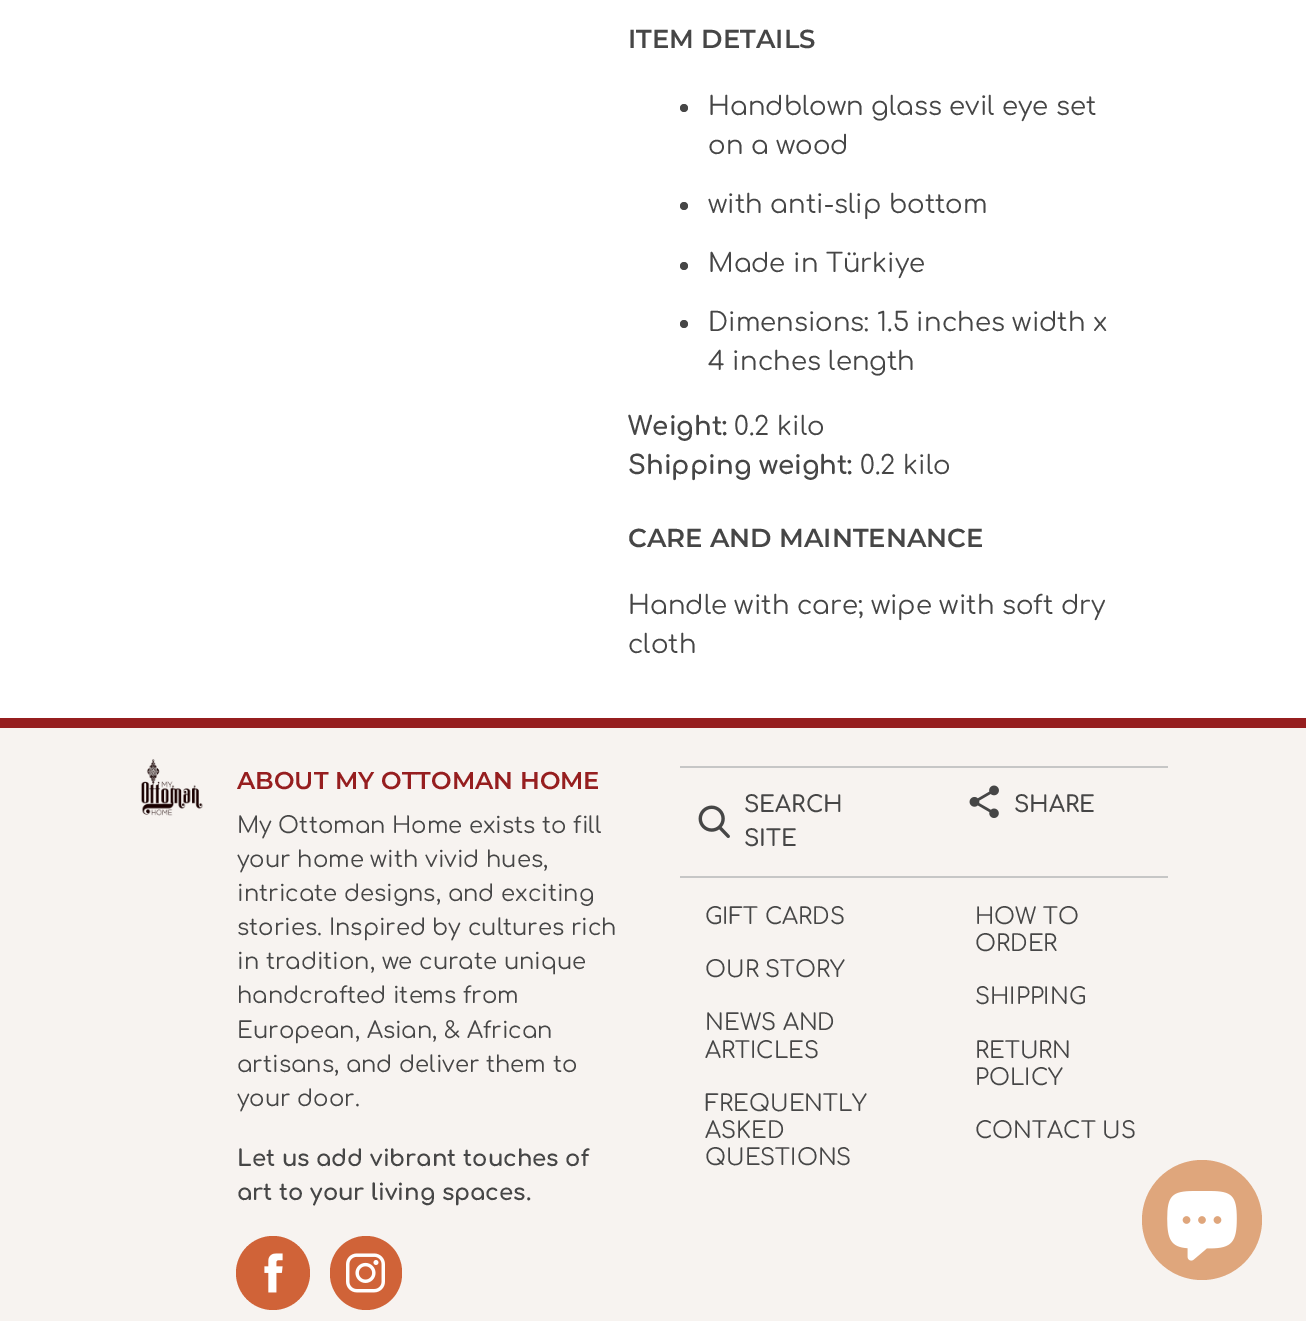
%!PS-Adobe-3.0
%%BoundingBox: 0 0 1306 1321
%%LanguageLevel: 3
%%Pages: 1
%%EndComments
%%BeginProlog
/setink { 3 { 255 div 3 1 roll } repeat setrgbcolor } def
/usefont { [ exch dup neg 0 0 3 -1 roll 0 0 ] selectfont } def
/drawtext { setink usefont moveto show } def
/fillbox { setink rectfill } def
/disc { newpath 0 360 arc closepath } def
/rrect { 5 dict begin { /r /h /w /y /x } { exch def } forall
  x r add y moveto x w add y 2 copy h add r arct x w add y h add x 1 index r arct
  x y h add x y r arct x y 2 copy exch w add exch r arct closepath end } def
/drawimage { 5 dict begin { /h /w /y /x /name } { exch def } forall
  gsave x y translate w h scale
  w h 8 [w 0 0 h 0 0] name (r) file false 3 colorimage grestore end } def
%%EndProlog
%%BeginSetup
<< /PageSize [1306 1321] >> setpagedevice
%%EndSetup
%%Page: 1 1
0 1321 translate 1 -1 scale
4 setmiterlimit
0 0 1306 1321 255 255 255 fillbox
(ITEM DETAILS) 628 48 /Montserrat-SemiBold 26 70 70 70 drawtext
684 108 4 disc fill
(Handblown glass evil eye set) 708 115 /Comfortaa-Regular 26 70 70 70 drawtext
(on a wood) 708 154 /Comfortaa-Regular 26 70 70 70 drawtext
684 206 4 disc fill
(with anti-slip bottom) 708 213 /Comfortaa-Regular 26 70 70 70 drawtext
684 266 4 disc fill
(Made in Türkiye) 708 272 /Comfortaa-Regular 26 70 70 70 drawtext
684 324 4 disc fill
(Dimensions: 1.5 inches width x) 708 331 /Comfortaa-Regular 26 70 70 70 drawtext
(4 inches length) 708 370 /Comfortaa-Regular 26 70 70 70 drawtext
(Weight:) 628 435 /Comfortaa-Bold 26 70 70 70 drawtext
(0.2 kilo) 734 435 /Comfortaa-Regular 26 70 70 70 drawtext
(Shipping weight:) 628 474 /Comfortaa-Bold 26 70 70 70 drawtext
(0.2 kilo) 860 474 /Comfortaa-Regular 26 70 70 70 drawtext
(CARE AND MAINTENANCE) 628 547 /Montserrat-SemiBold 26 70 70 70 drawtext
(Handle with care; wipe with soft dry) 628 614 /Comfortaa-Regular 26 70 70 70 drawtext
(cloth) 628 653 /Comfortaa-Regular 26 70 70 70 drawtext
0 728 1306 593 247 243 240 fillbox
0 718 1306 10 150 30 31 fillbox
(assets/img1.rgb) 141 759 62 57 drawimage
(ABOUT MY OTTOMAN HOME) 237 789 /Montserrat-SemiBold 24.4 150 30 31 drawtext
(My Ottoman Home exists to fill) 237 833 /Comfortaa-Regular 22.75 70 70 70 drawtext
(your home with vivid hues,) 237 867 /Comfortaa-Regular 22.75 70 70 70 drawtext
(intricate designs, and exciting) 237 901 /Comfortaa-Regular 22.75 70 70 70 drawtext
(stories. Inspired by cultures rich) 237 935 /Comfortaa-Regular 22.75 70 70 70 drawtext
(in tradition, we curate unique) 237 969 /Comfortaa-Regular 22.75 70 70 70 drawtext
(handcrafted items from) 237 1003 /Comfortaa-Regular 22.75 70 70 70 drawtext
(European, Asian, & African) 237 1038 /Comfortaa-Regular 22.75 70 70 70 drawtext
(artisans, and deliver them to) 237 1072 /Comfortaa-Regular 22.75 70 70 70 drawtext
(your door.) 237 1106 /Comfortaa-Regular 22.75 70 70 70 drawtext
(Let us add vibrant touches of) 237 1166 /Comfortaa-Bold 22.75 70 70 70 drawtext
(art to your living spaces.) 237 1200 /Comfortaa-Bold 22.75 70 70 70 drawtext
208 99 56 setink
273 1273 37 disc fill
(assets/img2.rgb) 264 1253 19 40 drawimage
330 1236 72 74 36 rrect fill
(assets/img3.rgb) 346 1253 39 40 drawimage
680 766 488 2 198 198 198 fillbox
(assets/img4.rgb) 698 805 32 33 drawimage
(SEARCH) 744 812 /Comfortaa-SemiBold 22.75 70 70 70 drawtext
(SITE) 744 846 /Comfortaa-SemiBold 22.75 70 70 70 drawtext
(assets/img5.rgb) 969 785 30 33 drawimage
(SHARE) 1014 812 /Comfortaa-SemiBold 22.75 70 70 70 drawtext
680 876 488 2 198 198 198 fillbox
(GIFT CARDS) 705 924 /Comfortaa-Regular 22.75 70 70 70 drawtext
(OUR STORY) 705 977 /Comfortaa-Regular 22.75 70 70 70 drawtext
(NEWS AND) 705 1030 /Comfortaa-Regular 22.75 70 70 70 drawtext
(ARTICLES) 705 1058 /Comfortaa-Regular 22.75 70 70 70 drawtext
(FREQUENTLY) 705 1111 /Comfortaa-Regular 22.75 70 70 70 drawtext
(ASKED) 705 1138 /Comfortaa-Regular 22.75 70 70 70 drawtext
(QUESTIONS) 705 1165 /Comfortaa-Regular 22.75 70 70 70 drawtext
(HOW TO) 975 924 /Comfortaa-Regular 22.75 70 70 70 drawtext
(ORDER) 975 951 /Comfortaa-Regular 22.75 70 70 70 drawtext
(SHIPPING) 975 1004 /Comfortaa-Regular 22.75 70 70 70 drawtext
(RETURN) 975 1058 /Comfortaa-Regular 22.75 70 70 70 drawtext
(POLICY) 975 1085 /Comfortaa-Regular 22.75 70 70 70 drawtext
(CONTACT US) 975 1138 /Comfortaa-Regular 22.75 70 70 70 drawtext
223 166 124 setink
1202 1220 60 disc fill
(assets/img6.rgb) 1167 1191 70 70 drawimage
showpage
%%EOF
